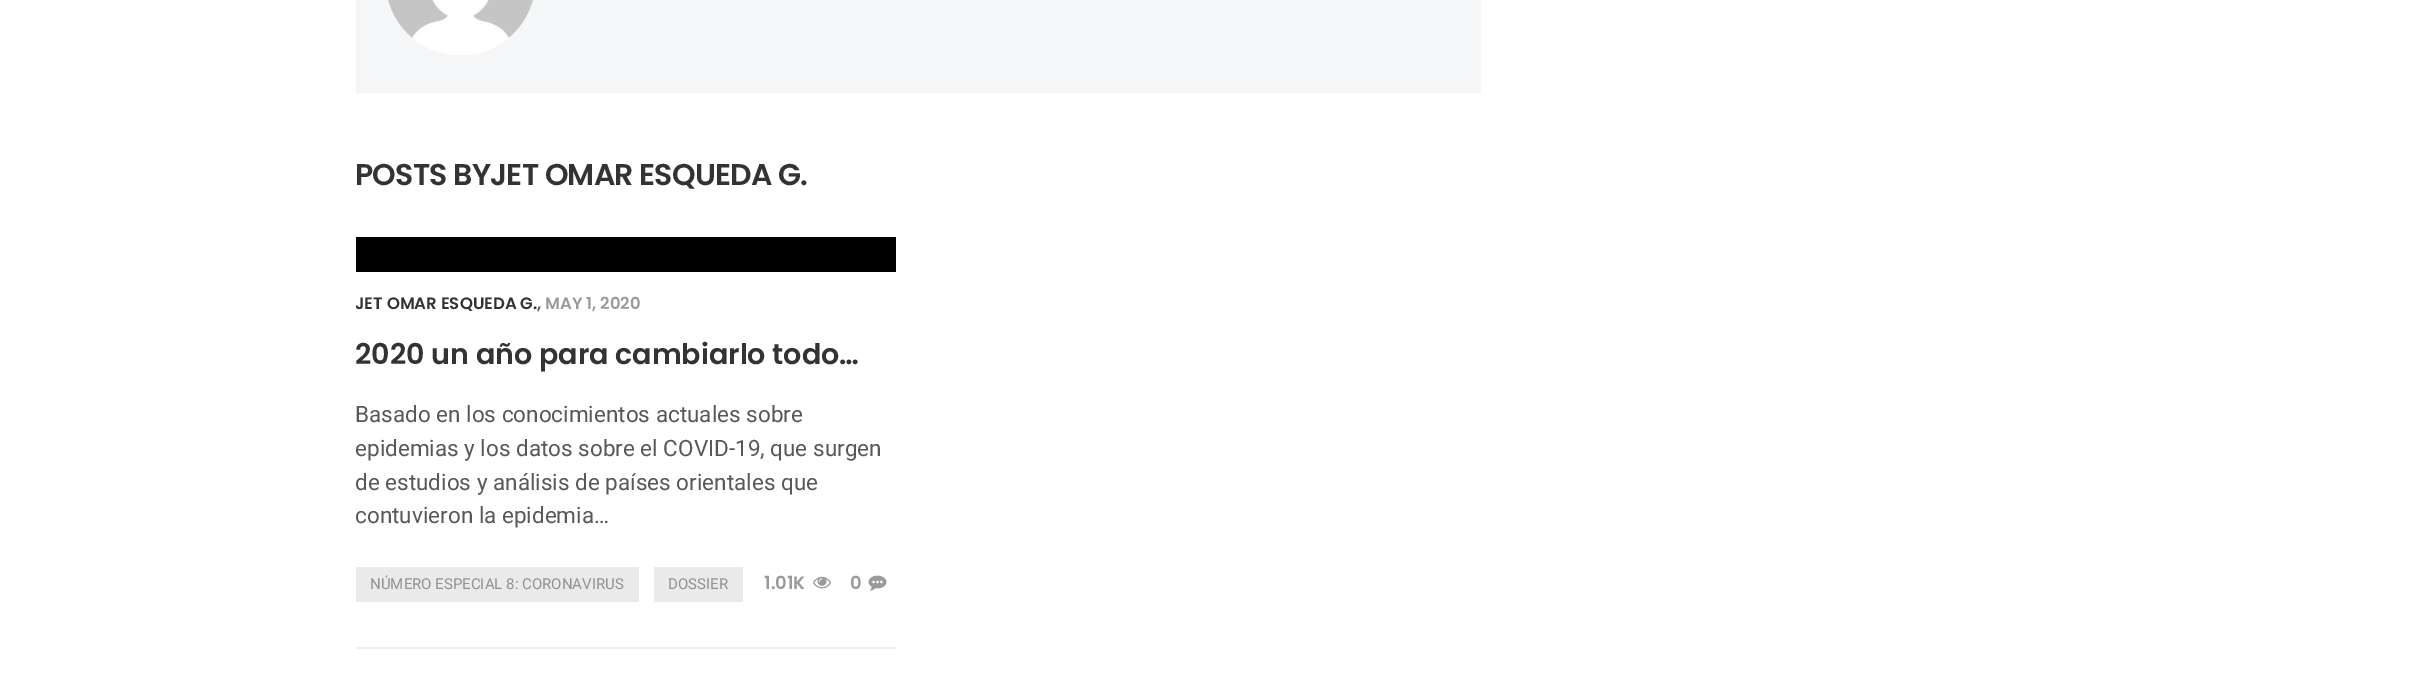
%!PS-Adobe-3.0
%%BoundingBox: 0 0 2419 682
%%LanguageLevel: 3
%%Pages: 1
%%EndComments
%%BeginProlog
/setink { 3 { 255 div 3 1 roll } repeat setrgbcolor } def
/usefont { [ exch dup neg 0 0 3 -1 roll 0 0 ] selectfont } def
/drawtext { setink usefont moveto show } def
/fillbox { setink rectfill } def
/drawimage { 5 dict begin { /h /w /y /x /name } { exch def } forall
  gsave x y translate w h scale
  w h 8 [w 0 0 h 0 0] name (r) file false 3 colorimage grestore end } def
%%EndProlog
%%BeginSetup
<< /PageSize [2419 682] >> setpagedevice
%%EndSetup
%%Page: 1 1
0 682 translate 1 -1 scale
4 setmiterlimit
0 0 2419 682 255 255 255 fillbox
356 0 1125 93 245 246 247 fillbox
(assets/img1.rgb) 388 0 145 55 drawimage
/Poppins-SemiBold 30 usefont
51 51 51 setink
355 185 moveto -0.75 0 (POSTS BYJET OMAR ESQUEDA G.) ashow
356 647 540 2 241 241 241 fillbox
356 237 540 35 0 0 0 fillbox
gsave
356 287 540 34 rectclip
(JET OMAR ESQUEDA G.) 355 309 /Poppins-SemiBold 16.5 51 51 51 drawtext
grestore
(,) 537 309 /Poppins-SemiBold 16.5 89 88 88 drawtext
(MAY 1, 2020) 545 309 /Poppins-SemiBold 16.5 154 154 154 drawtext
(2020 un año para cambiarlo todo…) 355 364 /Poppins-SemiBold 28.5 51 51 51 drawtext
(Basado en los conocimientos actuales sobre) 355 422 /Roboto-Regular 22.5 89 88 88 drawtext
(epidemias y los datos sobre el COVID-19, que surgen) 355 456 /Roboto-Regular 22.5 89 88 88 drawtext
(de estudios y análisis de países orientales que) 355 490 /Roboto-Regular 22.5 89 88 88 drawtext
(contuvieron la epidemia…) 355 523 /Roboto-Regular 22.5 89 88 88 drawtext
356 567 283 35 234 234 234 fillbox
(NÚMERO ESPECIAL 8: CORONAVIRUS) 370 589 /Roboto-Regular 15 147 146 146 drawtext
654 567 89 35 234 234 234 fillbox
(DOSSIER) 668 589 /Roboto-Regular 15 147 146 146 drawtext
(1.01K) 764 589 /Poppins-SemiBold 18 154 154 154 drawtext
(assets/img2.rgb) 813 576 18 13 drawimage
(0) 850 589 /Poppins-SemiBold 18 154 154 154 drawtext
(assets/img3.rgb) 868 575 19 16 drawimage
showpage
%%EOF
